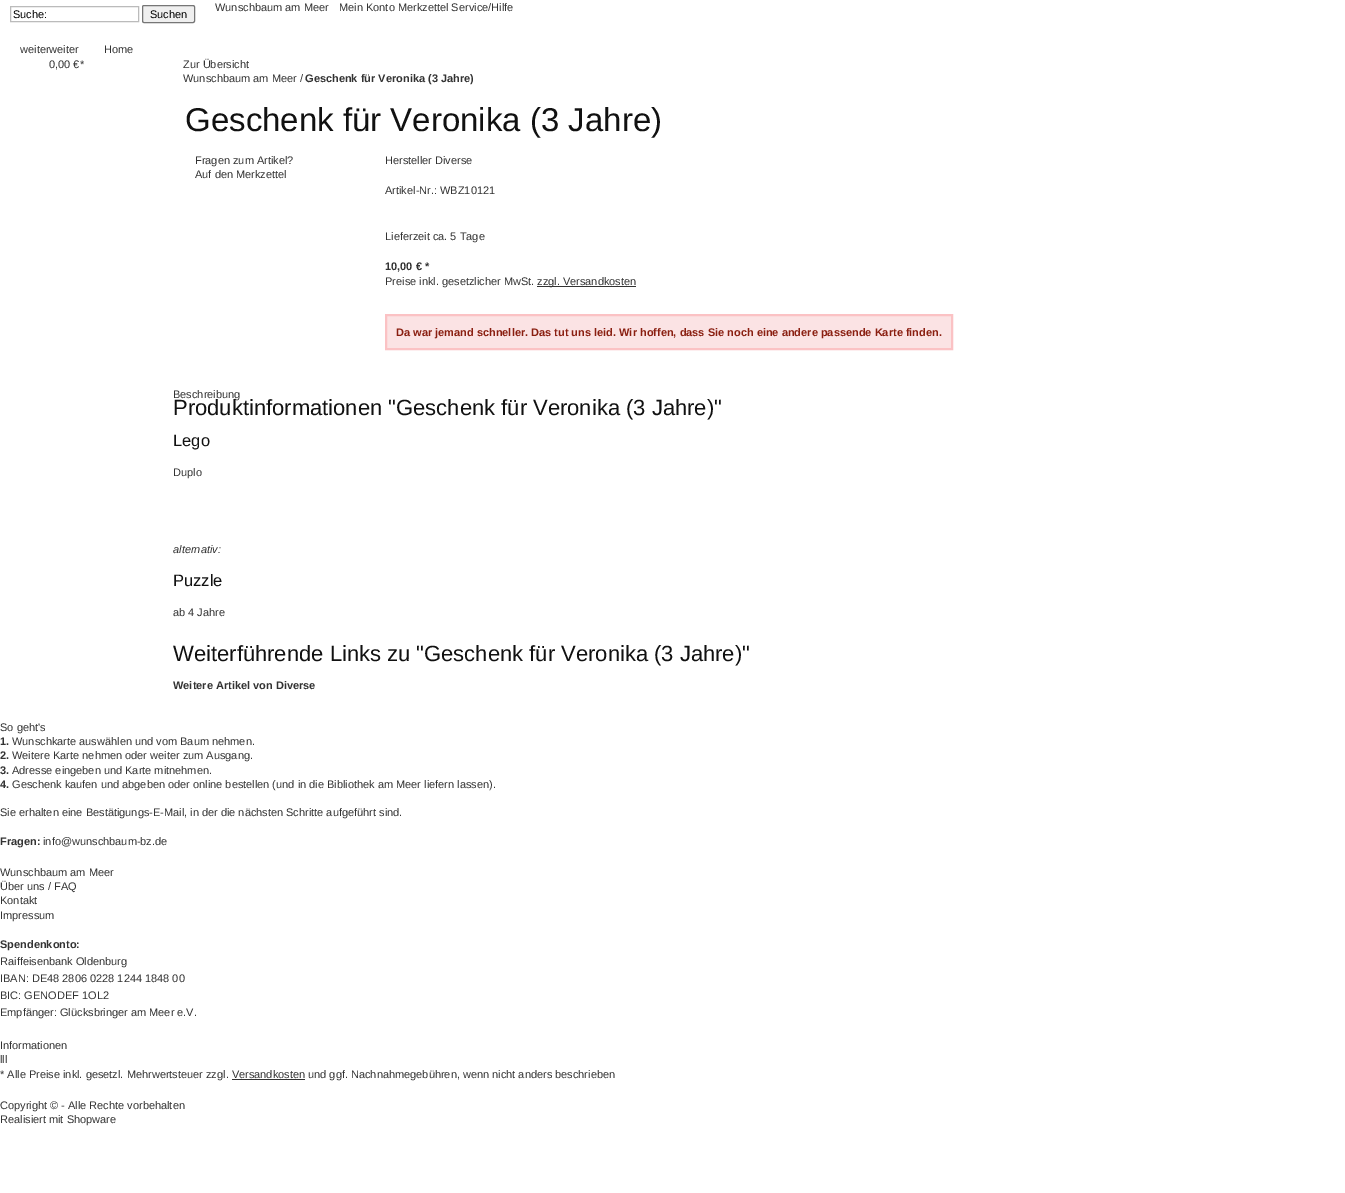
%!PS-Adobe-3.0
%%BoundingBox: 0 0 1345 1193
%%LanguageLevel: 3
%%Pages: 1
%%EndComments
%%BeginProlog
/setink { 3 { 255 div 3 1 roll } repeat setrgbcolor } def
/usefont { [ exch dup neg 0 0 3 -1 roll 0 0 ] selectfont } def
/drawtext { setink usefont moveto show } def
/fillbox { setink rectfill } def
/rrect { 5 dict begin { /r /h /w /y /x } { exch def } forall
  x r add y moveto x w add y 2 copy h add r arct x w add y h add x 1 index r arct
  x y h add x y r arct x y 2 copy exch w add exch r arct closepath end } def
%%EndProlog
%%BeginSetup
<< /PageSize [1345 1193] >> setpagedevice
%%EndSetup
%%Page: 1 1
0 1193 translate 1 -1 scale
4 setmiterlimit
0 0 1345 1193 255 255 255 fillbox
(Wunschbaum am Meer) 215 11 /LiberationSans-Regular 11 51 51 51 drawtext
(Mein Konto Merkzettel Service/Hilfe) 339 11 /LiberationSans-Regular 11 51 51 51 drawtext
187 187 187 setink
10.5 6.5 128 15 rectstroke
(Suche:) 13 18 /LiberationSans-Regular 11 0 0 0 drawtext
239 239 239 setink
142.5 5.5 52 17 1.5 rrect gsave fill grestore
118 118 118 setink
stroke
(Suchen) 150 18 /LiberationSans-Regular 11 0 0 0 drawtext
(weiterweiter) 20 53 /LiberationSans-Regular 11 51 51 51 drawtext
(0,00 €*) 49 68 /LiberationSans-Regular 11 51 51 51 drawtext
(Home) 104 53 /LiberationSans-Regular 11 51 51 51 drawtext
(Zur Übersicht) 183 68 /LiberationSans-Regular 11 51 51 51 drawtext
(Wunschbaum am Meer /) 183 82 /LiberationSans-Regular 11 51 51 51 drawtext
(Geschenk für Veronika \(3 Jahre\)) 305 82 /LiberationSans-Bold 11 51 51 51 drawtext
(Geschenk für Veronika \(3 Jahre\)) 185 131 /LiberationSans-Regular 33 17 17 17 drawtext
(Fragen zum Artikel?) 195 164 /LiberationSans-Regular 11 51 51 51 drawtext
(Auf den Merkzettel) 195 178 /LiberationSans-Regular 11 51 51 51 drawtext
(Hersteller Diverse) 385 164 /LiberationSans-Regular 11 51 51 51 drawtext
(Artikel-Nr.: WBZ10121) 385 194 /LiberationSans-Regular 11 51 51 51 drawtext
(Lieferzeit ca. 5 Tage) 385 240 /LiberationSans-Regular 11 51 51 51 drawtext
(10,00 € *) 385 270 /LiberationSans-Bold 11 51 51 51 drawtext
(Preise inkl. gesetzlicher MwSt.) 385 285 /LiberationSans-Regular 11 51 51 51 drawtext
537 286 99 1 51 51 51 fillbox
(zzgl. Versandkosten) 537 285 /LiberationSans-Regular 11 51 51 51 drawtext
251 227 228 setink
386 315 moveto 952 315 lineto 952 349 lineto 386 349 lineto closepath gsave fill grestore
251 194 196 setink
2 setlinewidth
stroke
(Da war jemand schneller. Das tut uns leid. Wir hoffen, dass Sie noch eine andere passende Karte finden.) 396 336 /LiberationSans-Bold 11 138 31 17 drawtext
(Beschreibung) 173 398 /LiberationSans-Regular 11 51 51 51 drawtext
(Produktinformationen "Geschenk für Veronika \(3 Jahre\)") 173 415 /LiberationSans-Regular 22 17 17 17 drawtext
(Lego) 173 446 /LiberationSans-Regular 16.5 17 17 17 drawtext
(Duplo) 173 476 /LiberationSans-Regular 11 51 51 51 drawtext
(alternativ:) 173 553 /LiberationSans-Italic 11 51 51 51 drawtext
(Puzzle) 173 586 /LiberationSans-Regular 16.5 17 17 17 drawtext
(ab 4 Jahre) 173 616 /LiberationSans-Regular 11 51 51 51 drawtext
(Weiterführende Links zu "Geschenk für Veronika \(3 Jahre\)") 173 661 /LiberationSans-Regular 22 17 17 17 drawtext
(Weitere Artikel von Diverse) 173 689 /LiberationSans-Bold 11 51 51 51 drawtext
(So geht's) 0 731 /LiberationSans-Regular 11 51 51 51 drawtext
(1.) 0 745 /LiberationSans-Bold 11 51 51 51 drawtext
(Wunschkarte auswählen und vom Baum nehmen.) 12 745 /LiberationSans-Regular 11 51 51 51 drawtext
(2.) 0 759 /LiberationSans-Bold 11 51 51 51 drawtext
(Weitere Karte nehmen oder weiter zum Ausgang.) 12 759 /LiberationSans-Regular 11 51 51 51 drawtext
(3.) 0 774 /LiberationSans-Bold 11 51 51 51 drawtext
(Adresse eingeben und Karte mitnehmen.) 12 774 /LiberationSans-Regular 11 51 51 51 drawtext
(4.) 0 788 /LiberationSans-Bold 11 51 51 51 drawtext
(Geschenk kaufen und abgeben oder online bestellen \(und in die Bibliothek am Meer liefern lassen\).) 12 788 /LiberationSans-Regular 11 51 51 51 drawtext
(Sie erhalten eine Bestätigungs-E-Mail, in der die nächsten Schritte aufgeführt sind.) 0 816 /LiberationSans-Regular 11 51 51 51 drawtext
(Fragen:) 0 845 /LiberationSans-Bold 11 51 51 51 drawtext
(info@wunschbaum-bz.de) 43 845 /LiberationSans-Regular 11 51 51 51 drawtext
(Wunschbaum am Meer) 0 876 /LiberationSans-Regular 11 51 51 51 drawtext
(Über uns / FAQ) 0 890 /LiberationSans-Regular 11 51 51 51 drawtext
(Kontakt) 0 904 /LiberationSans-Regular 11 51 51 51 drawtext
(Impressum) 0 919 /LiberationSans-Regular 11 51 51 51 drawtext
(Spendenkonto:) 0 948 /LiberationSans-Bold 11 51 51 51 drawtext
(Raiffeisenbank Oldenburg) 0 965 /LiberationSans-Regular 11 51 51 51 drawtext
(IBAN: DE48 2806 0228 1244 1848 00) 0 982 /LiberationSans-Regular 11 51 51 51 drawtext
(BIC: GENODEF 1OL2) 0 999 /LiberationSans-Regular 11 51 51 51 drawtext
(Empfänger: Glücksbringer am Meer e.V.) 0 1016 /LiberationSans-Regular 11 51 51 51 drawtext
(Informationen) 0 1049 /LiberationSans-Regular 11 51 51 51 drawtext
(lll) 0 1063 /LiberationSans-Regular 11 51 51 51 drawtext
(* Alle Preise inkl. gesetzl. Mehrwertsteuer zzgl. Versandkosten und ggf. Nachnahmegebühren, wenn nicht anders beschrieben) 0 1078 /LiberationSans-Regular 11 51 51 51 drawtext
232 1079 73 1 51 51 51 fillbox
(Copyright © - Alle Rechte vorbehalten) 0 1109 /LiberationSans-Regular 11 51 51 51 drawtext
(Realisiert mit Shopware) 0 1123 /LiberationSans-Regular 11 51 51 51 drawtext
showpage
%%EOF
